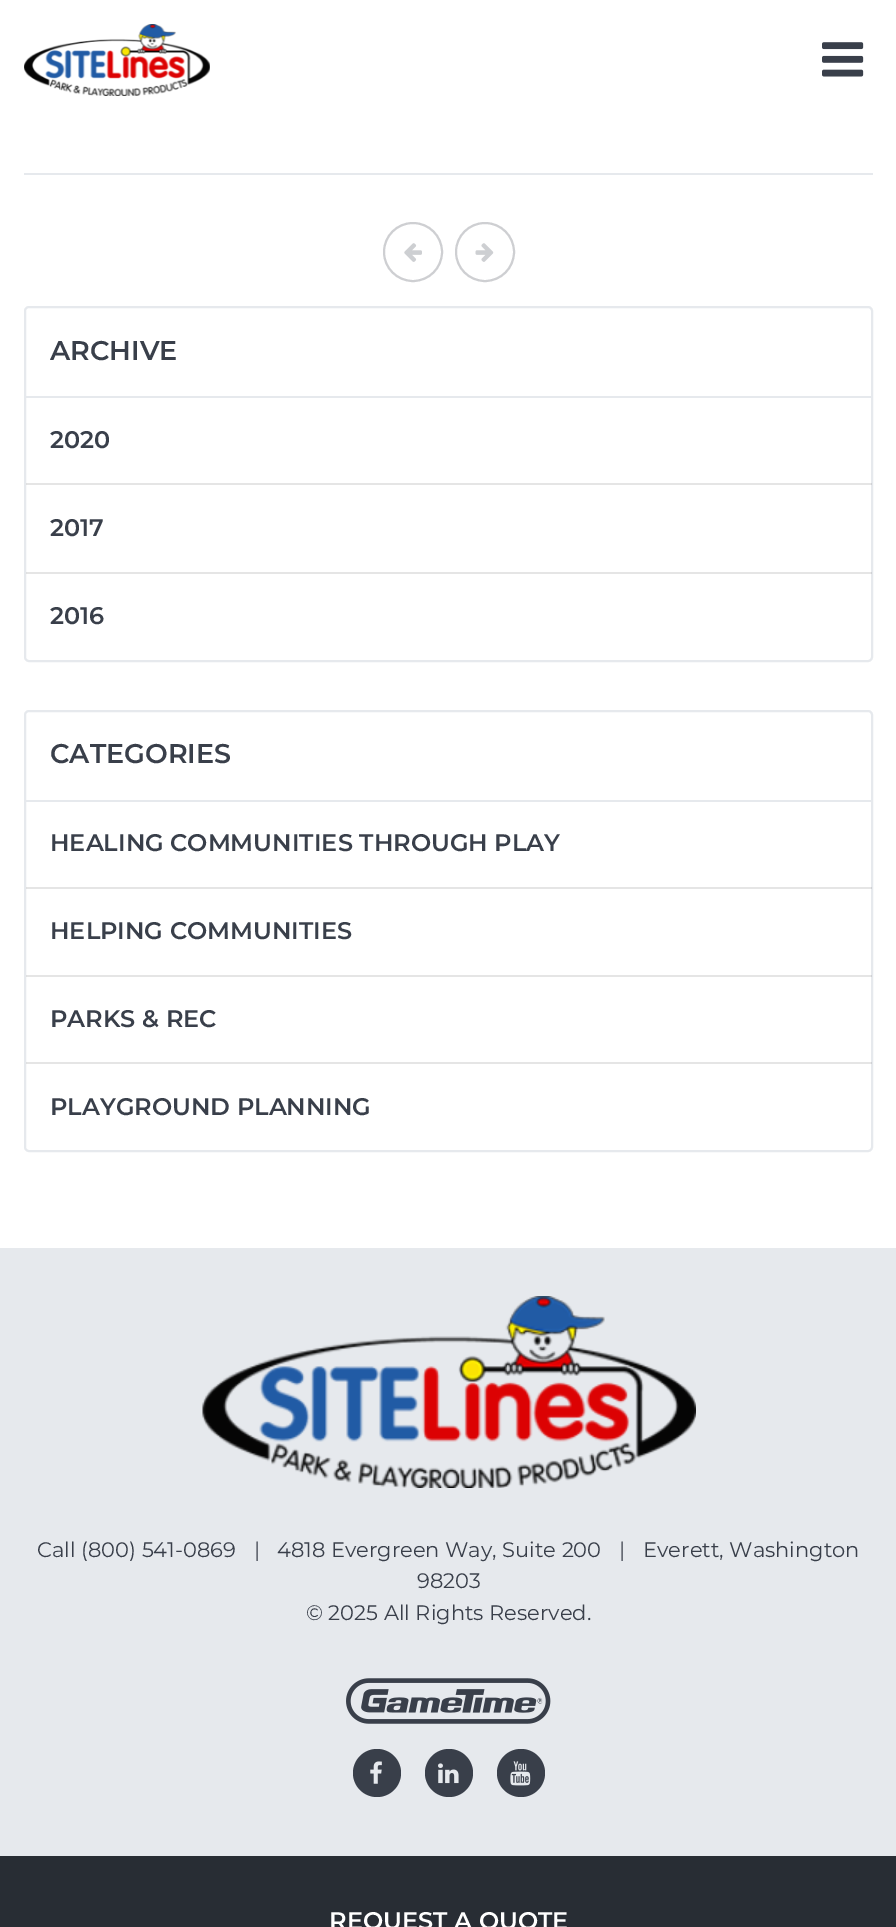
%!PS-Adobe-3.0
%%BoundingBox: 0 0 896 1927
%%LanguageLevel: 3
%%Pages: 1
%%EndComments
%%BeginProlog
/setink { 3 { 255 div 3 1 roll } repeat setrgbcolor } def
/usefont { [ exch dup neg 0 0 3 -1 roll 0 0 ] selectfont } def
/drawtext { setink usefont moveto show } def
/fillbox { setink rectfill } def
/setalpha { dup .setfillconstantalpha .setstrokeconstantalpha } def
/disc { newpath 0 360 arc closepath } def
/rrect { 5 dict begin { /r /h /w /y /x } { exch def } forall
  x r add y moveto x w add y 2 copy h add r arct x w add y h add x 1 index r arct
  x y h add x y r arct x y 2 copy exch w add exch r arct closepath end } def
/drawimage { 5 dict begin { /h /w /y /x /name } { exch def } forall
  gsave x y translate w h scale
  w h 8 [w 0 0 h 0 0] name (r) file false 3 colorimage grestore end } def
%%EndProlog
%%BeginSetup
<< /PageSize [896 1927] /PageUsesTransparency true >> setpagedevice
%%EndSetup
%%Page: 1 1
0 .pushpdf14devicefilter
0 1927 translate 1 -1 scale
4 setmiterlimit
0 0 896 1927 255 255 255 fillbox
(assets/img1.rgb) 24 24 186 72 drawimage
(assets/img2.rgb) 822 42 42 35 drawimage
24 173 849 2 230 233 237 fillbox
206 207 210 setink
2 setlinewidth
413 252 29 disc stroke
(assets/img3.rgb) 404 243 18 19 drawimage
485 252 29 disc stroke
(assets/img4.rgb) 475 243 19 19 drawimage
230 233 237 setink
25 307 847 354 4 rrect stroke
26 396 846 2 230 233 237 fillbox
(ARCHIVE) 50 360 /Montserrat-SemiBold 27 57 63 74 drawtext
0.1 setalpha
26 483 846 2 0 0 0 fillbox
1 setalpha
(2020) 50 448 /Montserrat-SemiBold 24 57 63 74 drawtext
0.1 setalpha
26 572 846 2 0 0 0 fillbox
1 setalpha
(2017) 50 536 /Montserrat-SemiBold 24 57 63 74 drawtext
(2016) 50 624 /Montserrat-SemiBold 24 57 63 74 drawtext
230 233 237 setink
25 711 847 440 4 rrect stroke
26 800 846 2 230 233 237 fillbox
(CATEGORIES) 50 763 /Montserrat-SemiBold 27 57 63 74 drawtext
0.1 setalpha
26 887 846 2 0 0 0 fillbox
1 setalpha
(HEALING COMMUNITIES THROUGH PLAY) 50 851 /Montserrat-SemiBold 24 57 63 74 drawtext
0.1 setalpha
26 975 846 2 0 0 0 fillbox
1 setalpha
(HELPING COMMUNITIES) 50 939 /Montserrat-SemiBold 24 57 63 74 drawtext
0.1 setalpha
26 1062 846 2 0 0 0 fillbox
1 setalpha
(PARKS & REC) 50 1027 /Montserrat-SemiBold 24 57 63 74 drawtext
(PLAYGROUND PLANNING) 50 1115 /Montserrat-SemiBold 24 57 63 74 drawtext
0 1248 896 608 230 233 237 fillbox
(assets/img5.rgb) 202 1296 494 192 drawimage
(Call \(800\) 541-0869) 37 1557 /Montserrat-Regular 21 57 63 74 drawtext
(|) 254 1557 /Montserrat-Regular 21 57 63 74 drawtext
(4818 Evergreen Way, Suite 200) 277 1557 /Montserrat-Regular 21 57 63 74 drawtext
(|) 619 1557 /Montserrat-Regular 21 57 63 74 drawtext
(Everett, Washington) 643 1557 /Montserrat-Regular 21 57 63 74 drawtext
(98203) 417 1588 /Montserrat-Regular 21 57 63 74 drawtext
(© 2025 All Rights Reserved.) 306 1620 /Montserrat-Regular 21 57 63 74 drawtext
(assets/img6.rgb) 346 1678 205 46 drawimage
377 1773 24 disc fill
(assets/img7.rgb) 370 1761 12 23 drawimage
449 1773 24 disc fill
(assets/img8.rgb) 438 1763 21 21 drawimage
521 1773 24 disc fill
(assets/img9.rgb) 510 1761 21 25 drawimage
0 1856 896 71 40 45 52 fillbox
(REQUEST A QUOTE) 329 1929 /Montserrat-SemiBold 24 255 255 255 drawtext
.poppdf14devicefilter showpage
%%EOF
